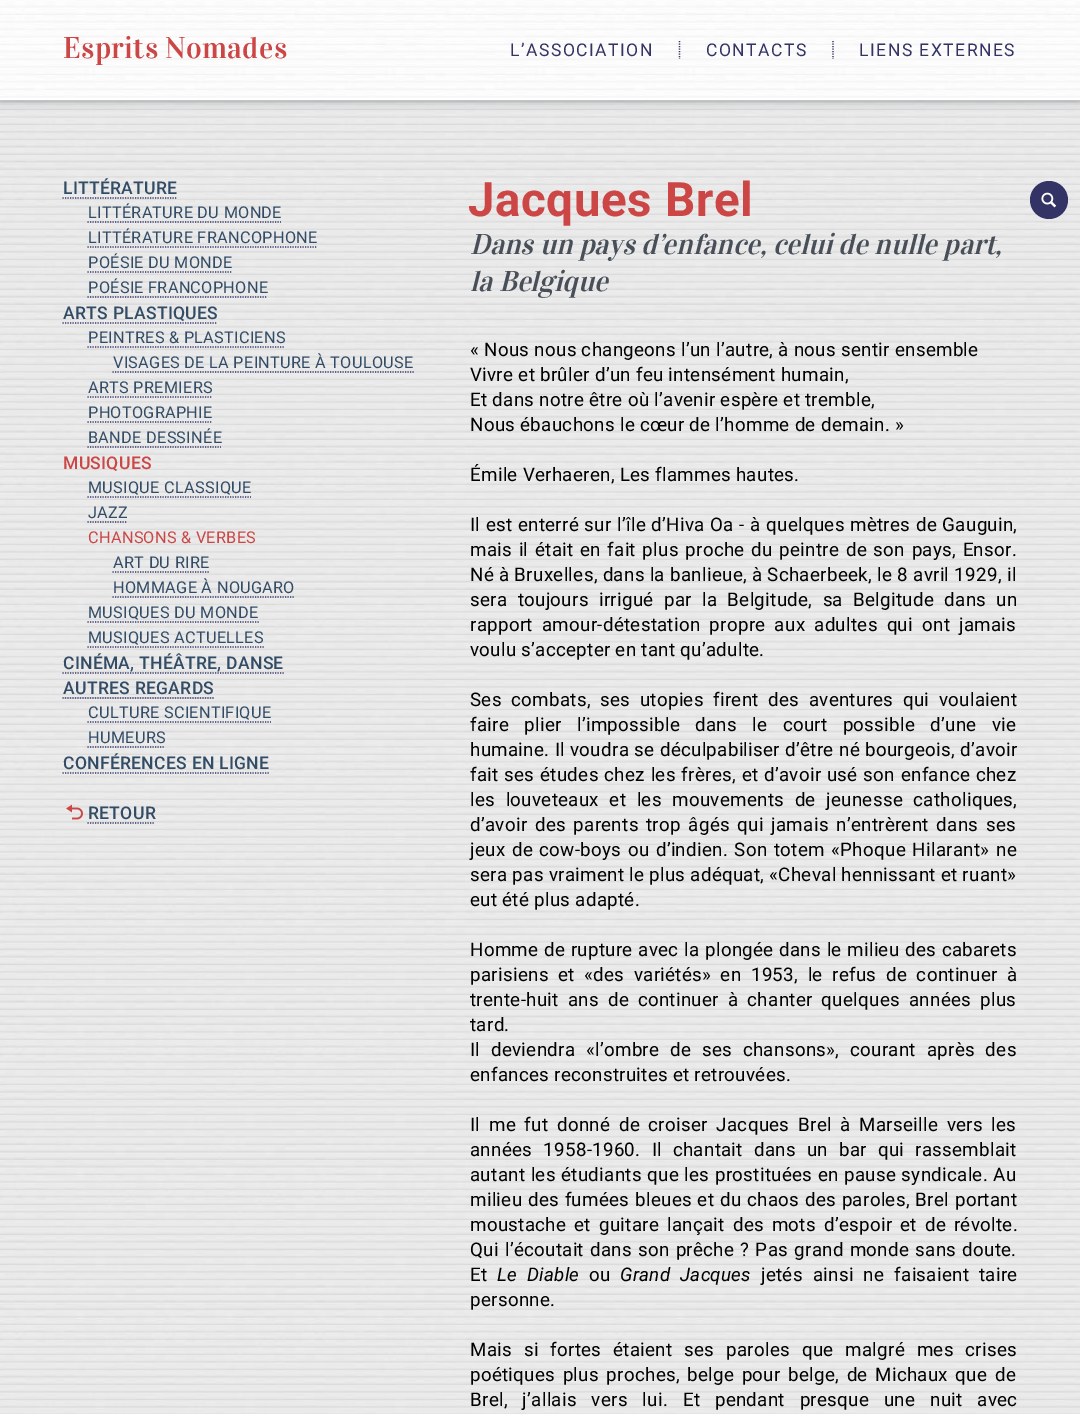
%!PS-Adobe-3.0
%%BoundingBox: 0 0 1080 1414
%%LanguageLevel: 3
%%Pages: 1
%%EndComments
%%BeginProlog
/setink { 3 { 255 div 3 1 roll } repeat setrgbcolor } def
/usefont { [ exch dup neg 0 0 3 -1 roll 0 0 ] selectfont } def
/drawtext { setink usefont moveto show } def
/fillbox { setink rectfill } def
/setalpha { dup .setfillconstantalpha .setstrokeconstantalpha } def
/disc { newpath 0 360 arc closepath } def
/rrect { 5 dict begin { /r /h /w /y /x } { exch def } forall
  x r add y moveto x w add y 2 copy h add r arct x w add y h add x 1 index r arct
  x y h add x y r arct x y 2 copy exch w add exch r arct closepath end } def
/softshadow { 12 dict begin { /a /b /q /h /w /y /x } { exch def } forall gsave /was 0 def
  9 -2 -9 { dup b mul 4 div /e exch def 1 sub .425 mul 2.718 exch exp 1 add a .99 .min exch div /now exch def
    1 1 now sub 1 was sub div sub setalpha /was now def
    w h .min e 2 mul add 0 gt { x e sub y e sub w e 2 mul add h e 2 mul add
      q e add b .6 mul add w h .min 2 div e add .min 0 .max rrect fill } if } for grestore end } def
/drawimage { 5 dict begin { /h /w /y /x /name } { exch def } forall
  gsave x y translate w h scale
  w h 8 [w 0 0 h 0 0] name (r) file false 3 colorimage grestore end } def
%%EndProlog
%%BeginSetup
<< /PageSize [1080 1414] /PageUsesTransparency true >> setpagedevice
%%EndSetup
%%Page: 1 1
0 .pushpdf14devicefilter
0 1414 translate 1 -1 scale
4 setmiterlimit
0 0 1080 1414 255 255 255 fillbox
(assets/img1.rgb) 0 100 1080 1314 drawimage
16 24 32 setink
0 1 1080 100 0 5 0.25 softshadow
0 -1 1080 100 0 5 0.12 softshadow
0 98 1080 2 255 255 255 fillbox
(assets/img2.rgb) 0 0 1080 98 drawimage
/Vidaloka-Regular 30 usefont
204 70 70 setink
63 58 moveto 0.3 0 (Esprits Nomades) ashow
51 51 102 setink
1.2 setlinewidth
[1.25 1.25] 0 setdash
679.5 41 moveto 679.5 59 lineto stroke
/Roboto-Regular 17.5 usefont
510 56 moveto 1.5 0 (L’ASSOCIATION) ashow
833 41 moveto 833 59 lineto stroke
706 56 moveto 1.5 0 (CONTACTS) ashow
859 56 moveto 1.5 0 (LIENS EXTERNES) ashow
/Roboto-Medium 17.5 usefont
51 76 102 setink
63 194 moveto 0.3 0 (LITTÉRATURE) ashow
51 51 102 setink
62.5 198 moveto 177.5 198 lineto stroke
/Roboto-Regular 16.25 usefont
51 76 102 setink
88 218 moveto 0.3 0 (LITTÉRATURE DU MONDE) ashow
51 51 102 setink
87.5 222 moveto 281 222 lineto stroke
51 76 102 setink
88 243 moveto 0.3 0 (LITTÉRATURE FRANCOPHONE) ashow
51 51 102 setink
87.5 247 moveto 317.5 247 lineto stroke
51 76 102 setink
88 268 moveto 0.3 0 (POÉSIE DU MONDE) ashow
51 51 102 setink
87.5 272 moveto 232.5 272 lineto stroke
51 76 102 setink
88 293 moveto 0.3 0 (POÉSIE FRANCOPHONE) ashow
51 51 102 setink
87.5 297 moveto 267.5 297 lineto stroke
/Roboto-Medium 17.5 usefont
51 76 102 setink
63 319 moveto 0.3 0 (ARTS PLASTIQUES) ashow
51 51 102 setink
62.5 323 moveto 217.5 323 lineto stroke
/Roboto-Regular 16.25 usefont
51 76 102 setink
88 343 moveto 0.3 0 (PEINTRES & PLASTICIENS) ashow
51 51 102 setink
87.5 347 moveto 285 347 lineto stroke
51 76 102 setink
113 368 moveto 0.3 0 (VISAGES DE LA PEINTURE À TOULOUSE) ashow
51 51 102 setink
112.5 372 moveto 414 372 lineto stroke
51 76 102 setink
88 393 moveto 0.3 0 (ARTS PREMIERS) ashow
51 51 102 setink
87.5 397 moveto 212.5 397 lineto stroke
51 76 102 setink
88 418 moveto 0.3 0 (PHOTOGRAPHIE) ashow
51 51 102 setink
87.5 422 moveto 212.5 422 lineto stroke
51 76 102 setink
88 443 moveto 0.3 0 (BANDE DESSINÉE) ashow
51 51 102 setink
87.5 447 moveto 221 447 lineto stroke
/Roboto-Medium 17.5 usefont
204 70 70 setink
63 469 moveto 0.3 0 (MUSIQUES) ashow
/Roboto-Regular 16.25 usefont
51 76 102 setink
88 493 moveto 0.3 0 (MUSIQUE CLASSIQUE) ashow
51 51 102 setink
87.5 497 moveto 251 497 lineto stroke
51 76 102 setink
88 518 moveto 0.3 0 (JAZZ) ashow
51 51 102 setink
87.5 522 moveto 127.5 522 lineto stroke
204 70 70 setink
88 543 moveto 0.3 0 (CHANSONS & VERBES) ashow
51 76 102 setink
113 568 moveto 0.3 0 (ART DU RIRE) ashow
51 51 102 setink
112.5 572 moveto 209 572 lineto stroke
51 76 102 setink
113 593 moveto 0.3 0 (HOMMAGE À NOUGARO) ashow
51 51 102 setink
112.5 597 moveto 295 597 lineto stroke
51 76 102 setink
88 618 moveto 0.3 0 (MUSIQUES DU MONDE) ashow
51 51 102 setink
87.5 622 moveto 259 622 lineto stroke
51 76 102 setink
88 643 moveto 0.3 0 (MUSIQUES ACTUELLES) ashow
51 51 102 setink
87.5 647 moveto 264 647 lineto stroke
/Roboto-Medium 17.5 usefont
51 76 102 setink
63 669 moveto 0.3 0 (CINÉMA, THÉÂTRE, DANSE) ashow
51 51 102 setink
62.5 673 moveto 284 673 lineto stroke
51 76 102 setink
63 694 moveto 0.3 0 (AUTRES REGARDS) ashow
51 51 102 setink
62.5 698 moveto 214 698 lineto stroke
/Roboto-Regular 16.25 usefont
51 76 102 setink
88 718 moveto 0.3 0 (CULTURE SCIENTIFIQUE) ashow
51 51 102 setink
87.5 722 moveto 271 722 lineto stroke
51 76 102 setink
88 743 moveto 0.3 0 (HUMEURS) ashow
51 51 102 setink
87.5 747 moveto 165 747 lineto stroke
/Roboto-Medium 17.5 usefont
51 76 102 setink
63 769 moveto 0.3 0 (CONFÉRENCES EN LIGNE) ashow
51 51 102 setink
62.5 773 moveto 269 773 lineto stroke
(assets/img3.rgb) 66 804 17 16 drawimage
51 76 102 setink
88 819 moveto 0.3 0 (RETOUR) ashow
51 51 102 setink
87.5 823 moveto 155 823 lineto stroke
/Roboto-Bold 47.5 usefont
204 70 70 setink
468 216 moveto 0.6 0 (Jacques Brel) ashow
(Dans un pays d’enfance, celui de nulle part,) 470 254 /Vidaloka-Italic 28.75 72 79 88 drawtext
(la Belgique) 470 291 /Vidaloka-Italic 28.75 72 79 88 drawtext
/Roboto-Regular 18.75 usefont
0 0 0 setink
470 356 moveto 0.3 0 (« Nous nous changeons l’un l’autre, à nous sentir ensemble) ashow
470 381 moveto 0.3 0 (Vivre et brûler d’un feu intensément humain,) ashow
470 406 moveto 0.3 0 (Et dans notre être où l’avenir espère et tremble,) ashow
470 431 moveto 0.3 0 (Nous ébauchons le cœur de l’homme de demain. ») ashow
470 481 moveto 0.3 0 (Émile Verhaeren, Les flammes hautes.) ashow
470 531 moveto 0.5 0 32 0.3 0 (Il est enterré sur l’île d’Hiva Oa - à quelques mètres de Gauguin,) awidthshow
470 556 moveto 1.6 0 32 0.3 0 (mais il était en fait plus proche du peintre de son pays, Ensor.) awidthshow
470 581 moveto 0.1 0 32 0.3 0 (Né à Bruxelles, dans la banlieue, à Schaerbeek, le 8 avril 1929, il) awidthshow
470 606 moveto 5.25 0 32 0.3 0 (sera toujours irrigué par la Belgitude, sa Belgitude dans un) awidthshow
470 631 moveto 4 0 32 0.3 0 (rapport amour-détestation propre aux adultes qui ont jamais) awidthshow
470 656 moveto 0.3 0 (voulu s’accepter en tant qu’adulte.) ashow
470 706 moveto 4.5 0 32 0.3 0 (Ses combats, ses utopies firent des aventures qui voulaient) awidthshow
470 731 moveto 10.25 0 32 0.3 0 (faire plier l’impossible dans le court possible d’une vie) awidthshow
470 756 moveto 0.25 0 32 0.3 0 (humaine. Il voudra se déculpabiliser d’être né bourgeois, d’avoir) awidthshow
470 781 moveto 0.75 0 32 0.3 0 (fait ses études chez les frères, et d’avoir usé son enfance chez) awidthshow
470 806 moveto 5.5 0 32 0.3 0 (les louveteaux et les mouvements de jeunesse catholiques,) awidthshow
470 831 moveto 2.5 0 32 0.3 0 (d’avoir des parents trop âgés qui jamais n’entrèrent dans ses) awidthshow
470 856 moveto 1.5 0 32 0.3 0 (jeux de cow-boys ou d’indien. Son totem «Phoque Hilarant» ne) awidthshow
470 881 moveto 0.3 0 (sera pas vraiment le plus adéquat, «Cheval hennissant et ruant») ashow
470 906 moveto 0.3 0 (eut été plus adapté.) ashow
470 956 moveto 0.6 0 32 0.3 0 (Homme de rupture avec la plongée dans le milieu des cabarets) awidthshow
470 981 moveto 4.5 0 32 0.3 0 (parisiens et «des variétés» en 1953, le refus de continuer à) awidthshow
470 1006 moveto 4 0 32 0.3 0 (trente-huit ans de continuer à chanter quelques années plus) awidthshow
470 1031 moveto 0.3 0 (tard.) ashow
470 1056 moveto 5.75 0 32 0.3 0 (Il deviendra «l’ombre de ses chansons», courant après des) awidthshow
470 1081 moveto 0.3 0 (enfances reconstruites et retrouvées.) ashow
470 1131 moveto 3.6 0 32 0.3 0 (Il me fut donné de croiser Jacques Brel à Marseille vers les) awidthshow
470 1156 moveto 6 0 32 0.3 0 (années 1958-1960. Il chantait dans un bar qui rassemblait) awidthshow
470 1181 moveto 0.5 0 32 0.3 0 (autant les étudiants que les prostituées en pause syndicale. Au) awidthshow
470 1206 moveto 0.75 0 32 0.3 0 (milieu des fumées bleues et du chaos des paroles, Brel portant) awidthshow
470 1231 moveto 3 0 32 0.3 0 (moustache et guitare lançait des mots d’espoir et de révolte.) awidthshow
470 1256 moveto 1.1 0 32 0.3 0 (Qui l’écoutait dans son prêche ? Pas grand monde sans doute.) awidthshow
470 1281 moveto 0.3 0 (Et) ashow
/Roboto-Italic 18.75 usefont
497 1281 moveto 5 0 32 0.3 0 (Le Diable) awidthshow
/Roboto-Regular 18.75 usefont
589 1281 moveto 0.3 0 (ou) ashow
/Roboto-Italic 18.75 usefont
620 1281 moveto 5 0 32 0.3 0 (Grand Jacques) awidthshow
/Roboto-Regular 18.75 usefont
761 1281 moveto 5 0 32 0.3 0 (jetés ainsi ne faisaient taire) awidthshow
470 1306 moveto 0.3 0 (personne.) ashow
470 1356 moveto 6.75 0 32 0.3 0 (Mais si fortes étaient ses paroles que malgré mes crises) awidthshow
470 1381 moveto 2.5 0 32 0.3 0 (poétiques plus proches, belge pour belge, de Michaux que de) awidthshow
470 1406 moveto 9.75 0 32 0.3 0 (Brel, j’allais vers lui. Et pendant presque une nuit avec) awidthshow
51 51 102 setink
1049 200 19 disc fill
(assets/img4.rgb) 1041 192 15 16 drawimage
.poppdf14devicefilter showpage
%%EOF
